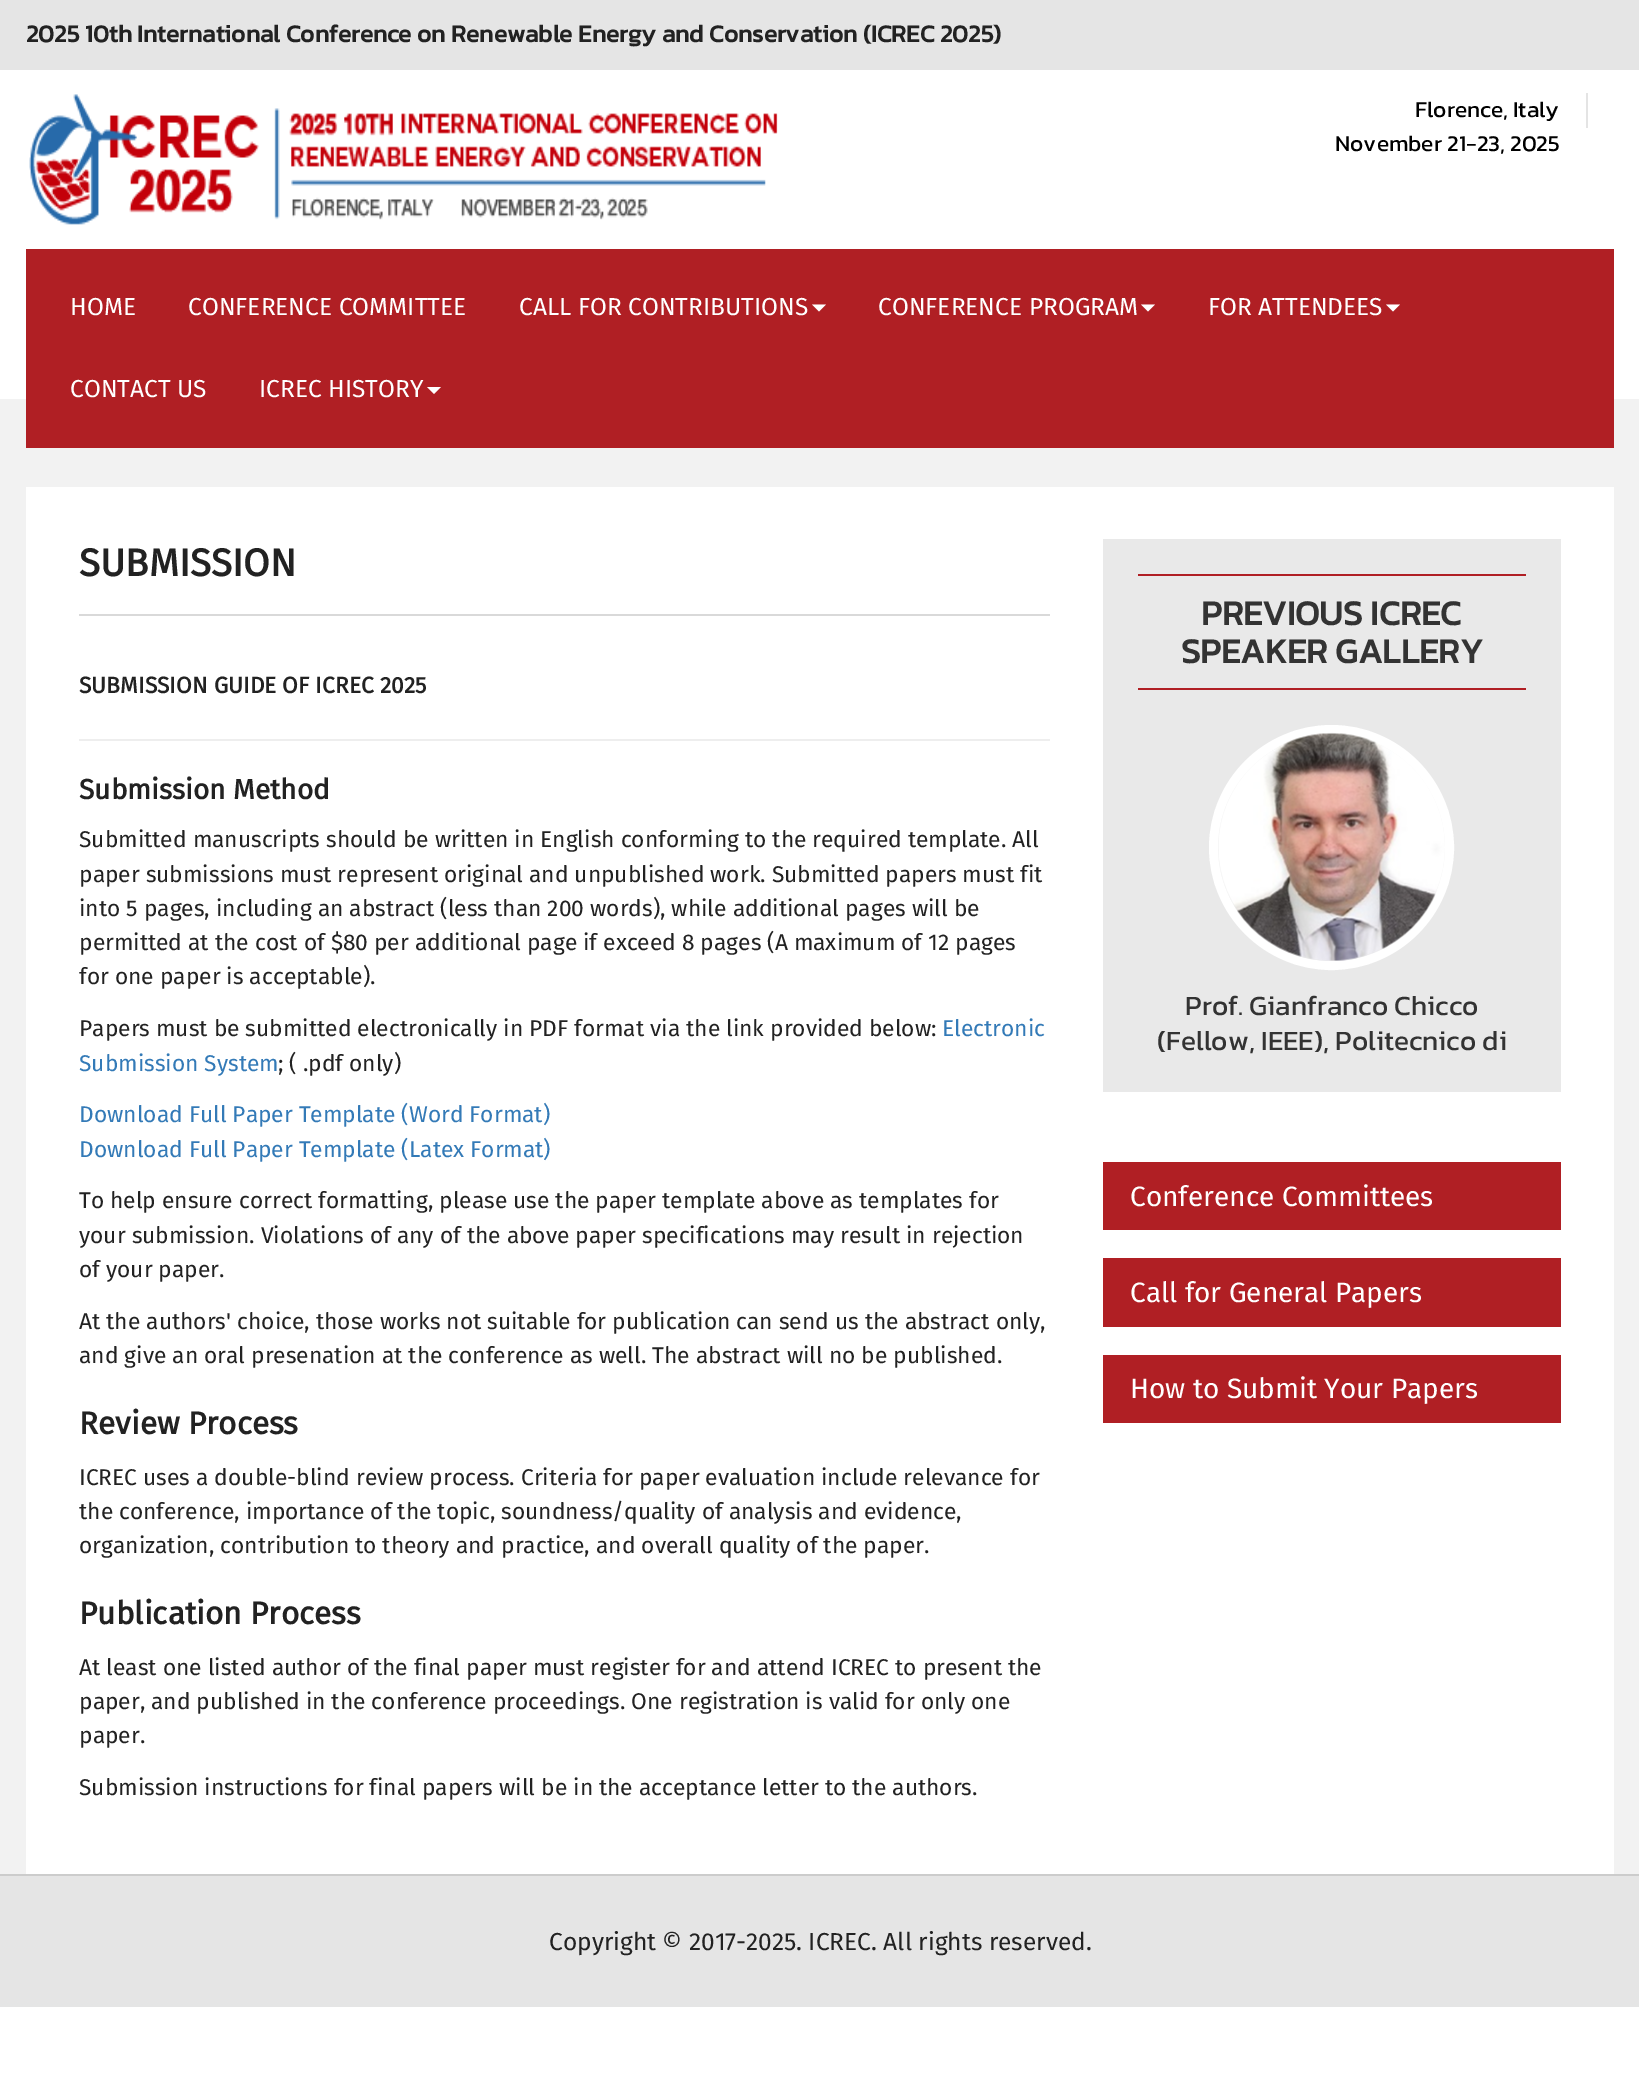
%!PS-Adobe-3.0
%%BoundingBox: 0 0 1639 2083
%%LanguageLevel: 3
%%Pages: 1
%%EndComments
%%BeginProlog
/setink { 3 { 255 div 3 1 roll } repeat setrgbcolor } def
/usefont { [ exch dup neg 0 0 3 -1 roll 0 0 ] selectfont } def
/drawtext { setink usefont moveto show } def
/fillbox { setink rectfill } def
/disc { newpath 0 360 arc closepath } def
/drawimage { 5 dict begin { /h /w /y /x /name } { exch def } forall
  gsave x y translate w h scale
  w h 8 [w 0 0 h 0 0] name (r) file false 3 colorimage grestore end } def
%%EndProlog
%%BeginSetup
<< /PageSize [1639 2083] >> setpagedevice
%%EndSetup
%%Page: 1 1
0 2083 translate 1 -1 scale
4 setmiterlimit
0 0 1639 2083 255 255 255 fillbox
0 0 1639 70 229 229 229 fillbox
(2025 10th International Conference on Renewable Energy and Conservation \(ICREC 2025\)) 26 42 /Kanit-Bold 24.5 34 34 34 drawtext
(assets/img1.rgb) 29 94 749 131 drawimage
(Florence, Italy) 1415 117 /Kanit-Regular 22.75 0 0 0 drawtext
(November 21-23, 2025) 1335 151 /Kanit-Regular 22.75 0 0 0 drawtext
1586 93 2 35 228 228 228 fillbox
0 399 1639 1475 242 242 242 fillbox
26 249 1588 199 176 31 36 fillbox
(HOME) 70 315 /FiraSans-Regular 24.5 255 255 255 drawtext
(CONFERENCE COMMITTEE) 188 315 /FiraSans-Regular 24.5 255 255 255 drawtext
(CALL FOR CONTRIBUTIONS) 519 315 /FiraSans-Regular 24.5 255 255 255 drawtext
812 304.5 moveto 826 304.5 lineto 819 311.5 lineto closepath fill
(CONFERENCE PROGRAM) 878 315 /FiraSans-Regular 24.5 255 255 255 drawtext
1141 304.5 moveto 1155 304.5 lineto 1148 311.5 lineto closepath fill
(FOR ATTENDEES) 1208 315 /FiraSans-Regular 24.5 255 255 255 drawtext
1386 304.5 moveto 1400 304.5 lineto 1393 311.5 lineto closepath fill
(CONTACT US) 70 397 /FiraSans-Regular 24.5 255 255 255 drawtext
(ICREC HISTORY) 259 397 /FiraSans-Regular 24.5 255 255 255 drawtext
427 387 moveto 441 387 lineto 434 394 lineto closepath fill
26 487 1588 1387 255 255 255 fillbox
79 614 971 2 217 217 217 fillbox
(SUBMISSION) 79 576 /FiraSans-Bold 38.5 34 34 34 drawtext
(SUBMISSION GUIDE OF ICREC 2025) 79 693 /FiraSans-Bold 22.75 34 34 34 drawtext
79 739 971 2 238 238 238 fillbox
(Submission Method) 79 799 /FiraSans-Bold 28 34 34 34 drawtext
(Submitted manuscripts should be written in English conforming to the required template. All) 79 847 /FiraSans-Regular 22.75 34 34 34 drawtext
(paper submissions must represent original and unpublished work. Submitted papers must fit) 79 882 /FiraSans-Regular 22.75 34 34 34 drawtext
(into 5 pages, including an abstract \(less than 200 words\), while additional pages will be) 79 916 /FiraSans-Regular 22.75 34 34 34 drawtext
(permitted at the cost of $80 per additional page if exceed 8 pages \(A maximum of 12 pages) 79 950 /FiraSans-Regular 22.75 34 34 34 drawtext
(for one paper is acceptable\).) 79 984 /FiraSans-Regular 22.75 34 34 34 drawtext
(Papers must be submitted electronically in PDF format via the link provided below:) 79 1036 /FiraSans-Regular 22.75 34 34 34 drawtext
(Electronic) 942 1036 /FiraSans-Regular 22.75 51 122 183 drawtext
(Submission System) 79 1071 /FiraSans-Regular 22.75 51 122 183 drawtext
(; \( .pdf only\)) 278 1071 /FiraSans-Regular 22.75 34 34 34 drawtext
(Download Full Paper Template \(Word Format\)) 79 1122 /FiraSans-Regular 22.75 51 122 183 drawtext
(Download Full Paper Template \(Latex Format\)) 79 1157 /FiraSans-Regular 22.75 51 122 183 drawtext
(To help ensure correct formatting, please use the paper template above as templates for) 79 1208 /FiraSans-Regular 22.75 34 34 34 drawtext
(your submission. Violations of any of the above paper specifications may result in rejection) 79 1243 /FiraSans-Regular 22.75 34 34 34 drawtext
(of your paper.) 79 1277 /FiraSans-Regular 22.75 34 34 34 drawtext
(At the authors' choice, those works not suitable for publication can send us the abstract only,) 79 1329 /FiraSans-Regular 22.75 34 34 34 drawtext
(and give an oral presenation at the conference as well. The abstract will no be published.) 79 1363 /FiraSans-Regular 22.75 34 34 34 drawtext
(Review Process) 79 1434 /FiraSans-Bold 31.5 34 34 34 drawtext
(ICREC uses a double-blind review process. Criteria for paper evaluation include relevance for) 79 1485 /FiraSans-Regular 22.75 34 34 34 drawtext
(the conference, importance of the topic, soundness/quality of analysis and evidence,) 79 1519 /FiraSans-Regular 22.75 34 34 34 drawtext
(organization, contribution to theory and practice, and overall quality of the paper.) 79 1553 /FiraSans-Regular 22.75 34 34 34 drawtext
(Publication Process) 79 1624 /FiraSans-Bold 31.5 34 34 34 drawtext
(At least one listed author of the final paper must register for and attend ICREC to present the) 79 1675 /FiraSans-Regular 22.75 34 34 34 drawtext
(paper, and published in the conference proceedings. One registration is valid for only one) 79 1709 /FiraSans-Regular 22.75 34 34 34 drawtext
(paper.) 79 1743 /FiraSans-Regular 22.75 34 34 34 drawtext
(Submission instructions for final papers will be in the acceptance letter to the authors.) 79 1795 /FiraSans-Regular 22.75 34 34 34 drawtext
1103 539 458 553 233 233 233 fillbox
1138 574 388 2 176 31 36 fillbox
1138 688 388 2 176 31 36 fillbox
(PREVIOUS ICREC) 1201 625 /Kanit-Bold 35 51 51 51 drawtext
(SPEAKER GALLERY) 1181 663 /Kanit-Bold 35 51 51 51 drawtext
255 255 255 setink
9 setlinewidth
1331.5 847.5 118 disc stroke
(assets/img2.rgb) 1218 732 227 229 drawimage
(Prof. Gianfranco Chicco) 1185 1015 /Kanit-Regular 28 51 51 51 drawtext
(\(Fellow, IEEE\), Politecnico di) 1157 1050 /Kanit-Regular 28 51 51 51 drawtext
1103 1162 458 68 176 31 36 fillbox
(Conference Committees) 1130 1206 /FiraSans-Regular 28 255 255 255 drawtext
1103 1258 458 69 176 31 36 fillbox
(Call for General Papers) 1130 1302 /FiraSans-Regular 28 255 255 255 drawtext
1103 1355 458 68 176 31 36 fillbox
(How to Submit Your Papers) 1130 1398 /FiraSans-Regular 28 255 255 255 drawtext
0 1876 1639 131 229 229 229 fillbox
0 1874 1639 2 204 204 204 fillbox
(Copyright © 2017-2025. ICREC. All rights reserved.) 549 1950 /FiraSans-Regular 24.5 34 34 34 drawtext
showpage
%%EOF
